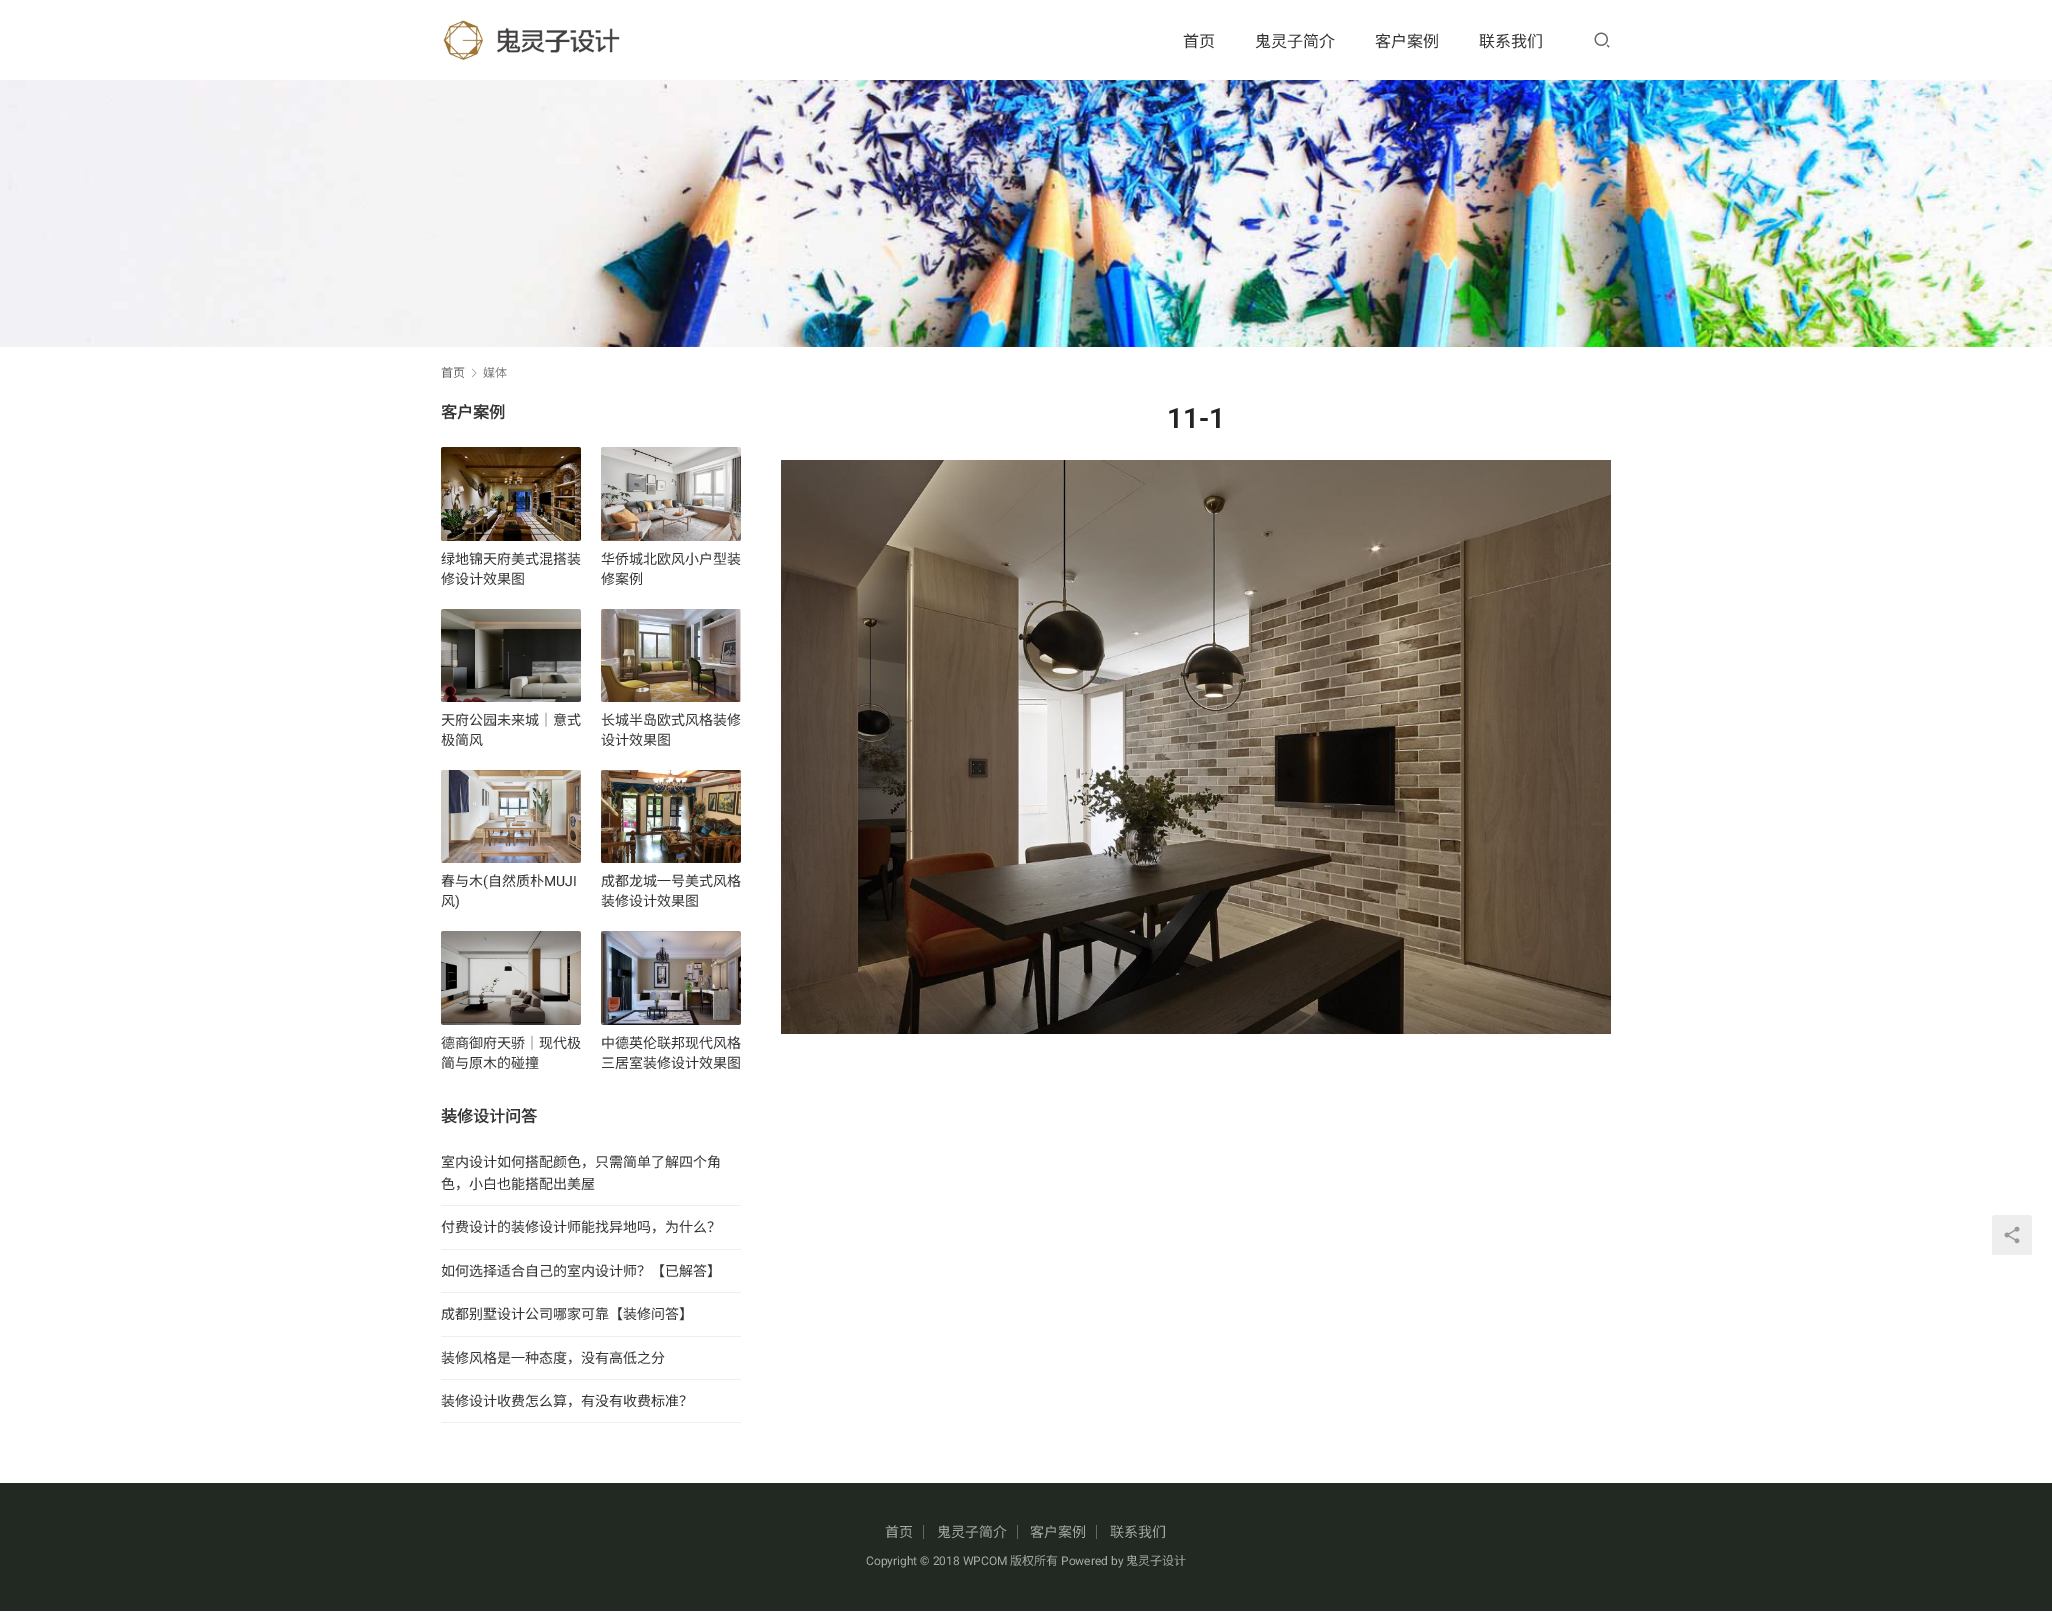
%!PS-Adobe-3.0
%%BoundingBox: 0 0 2052 1619
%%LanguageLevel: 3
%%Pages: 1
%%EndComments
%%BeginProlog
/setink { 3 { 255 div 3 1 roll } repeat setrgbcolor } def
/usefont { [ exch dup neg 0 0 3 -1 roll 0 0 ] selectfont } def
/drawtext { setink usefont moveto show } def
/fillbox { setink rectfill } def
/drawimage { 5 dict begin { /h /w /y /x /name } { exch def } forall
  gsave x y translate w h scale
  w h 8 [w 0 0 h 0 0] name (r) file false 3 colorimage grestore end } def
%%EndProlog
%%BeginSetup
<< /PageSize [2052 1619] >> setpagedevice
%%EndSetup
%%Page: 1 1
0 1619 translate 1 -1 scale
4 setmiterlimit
0 0 2052 1619 255 255 255 fillbox
(assets/img1.rgb) 443 20 177 40 drawimage
(首页) 1183 47 /NotoSansCJKSC-Regular 16 51 51 51 drawtext
(鬼灵子简介) 1255 47 /NotoSansCJKSC-Regular 16 51 51 51 drawtext
(客户案例) 1375 47 /NotoSansCJKSC-Regular 16 51 51 51 drawtext
(联系我们) 1479 47 /NotoSansCJKSC-Regular 16 51 51 51 drawtext
(assets/img2.rgb) 1594 32 16 16 drawimage
(assets/img3.rgb) 0 80 2052 267 drawimage
(首页) 441 377 /NotoSansCJKSC-Regular 12 102 102 102 drawtext
(assets/img4.rgb) 472 368 5 10 drawimage
(媒体) 483 377 /NotoSansCJKSC-Regular 12 118 118 118 drawtext
(客户案例) 441 418 /NotoSansCJKSC-Bold 16 51 51 51 drawtext
(assets/img5.rgb) 441 447 140 94 drawimage
(绿地锦天府美式混搭装) 441 564 /NotoSansCJKSC-Regular 14 51 51 51 drawtext
(修设计效果图) 441 584 /NotoSansCJKSC-Regular 14 51 51 51 drawtext
(assets/img6.rgb) 601 447 140 94 drawimage
(华侨城北欧风小户型装) 601 564 /NotoSansCJKSC-Regular 14 51 51 51 drawtext
(修案例) 601 584 /NotoSansCJKSC-Regular 14 51 51 51 drawtext
(assets/img7.rgb) 441 609 140 93 drawimage
(天府公园未来城｜意式) 441 725 /NotoSansCJKSC-Regular 14 51 51 51 drawtext
(极简风) 441 745 /NotoSansCJKSC-Regular 14 51 51 51 drawtext
(assets/img8.rgb) 601 609 140 93 drawimage
(长城半岛欧式风格装修) 601 725 /NotoSansCJKSC-Regular 14 51 51 51 drawtext
(设计效果图) 601 745 /NotoSansCJKSC-Regular 14 51 51 51 drawtext
(assets/img9.rgb) 441 770 140 93 drawimage
(春与木) 441 886 /NotoSansCJKSC-Regular 14 51 51 51 drawtext
(\() 483 886 /Roboto-Regular 14 51 51 51 drawtext
(自然质朴) 488 886 /NotoSansCJKSC-Regular 14 51 51 51 drawtext
(MUJI) 544 886 /Roboto-Regular 14 51 51 51 drawtext
(风) 441 906 /NotoSansCJKSC-Regular 14 51 51 51 drawtext
(\)) 455 906 /Roboto-Regular 14 51 51 51 drawtext
(assets/img10.rgb) 601 770 140 93 drawimage
(成都龙城一号美式风格) 601 886 /NotoSansCJKSC-Regular 14 51 51 51 drawtext
(装修设计效果图) 601 906 /NotoSansCJKSC-Regular 14 51 51 51 drawtext
(assets/img11.rgb) 441 931 140 94 drawimage
(德商御府天骄｜现代极) 441 1048 /NotoSansCJKSC-Regular 14 51 51 51 drawtext
(简与原木的碰撞) 441 1068 /NotoSansCJKSC-Regular 14 51 51 51 drawtext
(assets/img12.rgb) 601 931 140 94 drawimage
(中德英伦联邦现代风格) 601 1048 /NotoSansCJKSC-Regular 14 51 51 51 drawtext
(三居室装修设计效果图) 601 1068 /NotoSansCJKSC-Regular 14 51 51 51 drawtext
(装修设计问答) 441 1122 /NotoSansCJKSC-Bold 16 51 51 51 drawtext
441 1205 300 1 238 238 238 fillbox
(室内设计如何搭配颜色，只需简单了解四个角) 441 1167 /NotoSansCJKSC-Regular 14 51 51 51 drawtext
(色，小白也能搭配出美屋) 441 1189 /NotoSansCJKSC-Regular 14 51 51 51 drawtext
441 1249 300 1 238 238 238 fillbox
(付费设计的装修设计师能找异地吗，为什么？) 441 1232 /NotoSansCJKSC-Regular 14 51 51 51 drawtext
441 1292 300 1 238 238 238 fillbox
(如何选择适合自己的室内设计师？【已解答】) 441 1276 /NotoSansCJKSC-Regular 14 51 51 51 drawtext
441 1336 300 1 238 238 238 fillbox
(成都别墅设计公司哪家可靠【装修问答】) 441 1319 /NotoSansCJKSC-Regular 14 51 51 51 drawtext
441 1379 300 1 238 238 238 fillbox
(装修风格是一种态度，没有高低之分) 441 1363 /NotoSansCJKSC-Regular 14 51 51 51 drawtext
441 1422 300 1 238 238 238 fillbox
(装修设计收费怎么算，有没有收费标准？) 441 1406 /NotoSansCJKSC-Regular 14 51 51 51 drawtext
(11-1) 1167 428 /Roboto-SemiBold 28 35 35 35 drawtext
(assets/img13.rgb) 781 460 830 574 drawimage
238 238 238 setink
1995 1215 moveto 2029 1215 lineto 2030.5 1215 2032 1216.5 2032 1218 curveto 2032 1255 lineto 1992 1255 lineto 1992 1218 lineto 1992 1216.5 1993.5 1215 1995 1215 curveto closepath fill
(assets/img14.rgb) 2004 1226 16 18 drawimage
0 1483 2052 128 34 41 34 fillbox
923 1525 1 14 102 102 102 fillbox
(首页) 885 1537 /NotoSansCJKSC-Regular 14 167 169 167 drawtext
1017 1525 1 14 102 102 102 fillbox
(鬼灵子简介) 937 1537 /NotoSansCJKSC-Regular 14 167 169 167 drawtext
1096 1525 1 14 102 102 102 fillbox
(客户案例) 1030 1537 /NotoSansCJKSC-Regular 14 167 169 167 drawtext
(联系我们) 1110 1537 /NotoSansCJKSC-Regular 14 167 169 167 drawtext
(Copyright © 2018 WPCOM) 866 1565 /Roboto-Regular 12 167 169 167 drawtext
(版权所有) 1010 1565 /NotoSansCJKSC-Regular 12 167 169 167 drawtext
(Powered by) 1061 1565 /Roboto-Regular 12 167 169 167 drawtext
(鬼灵子设计) 1126 1565 /NotoSansCJKSC-Regular 12 167 169 167 drawtext
showpage
%%EOF
